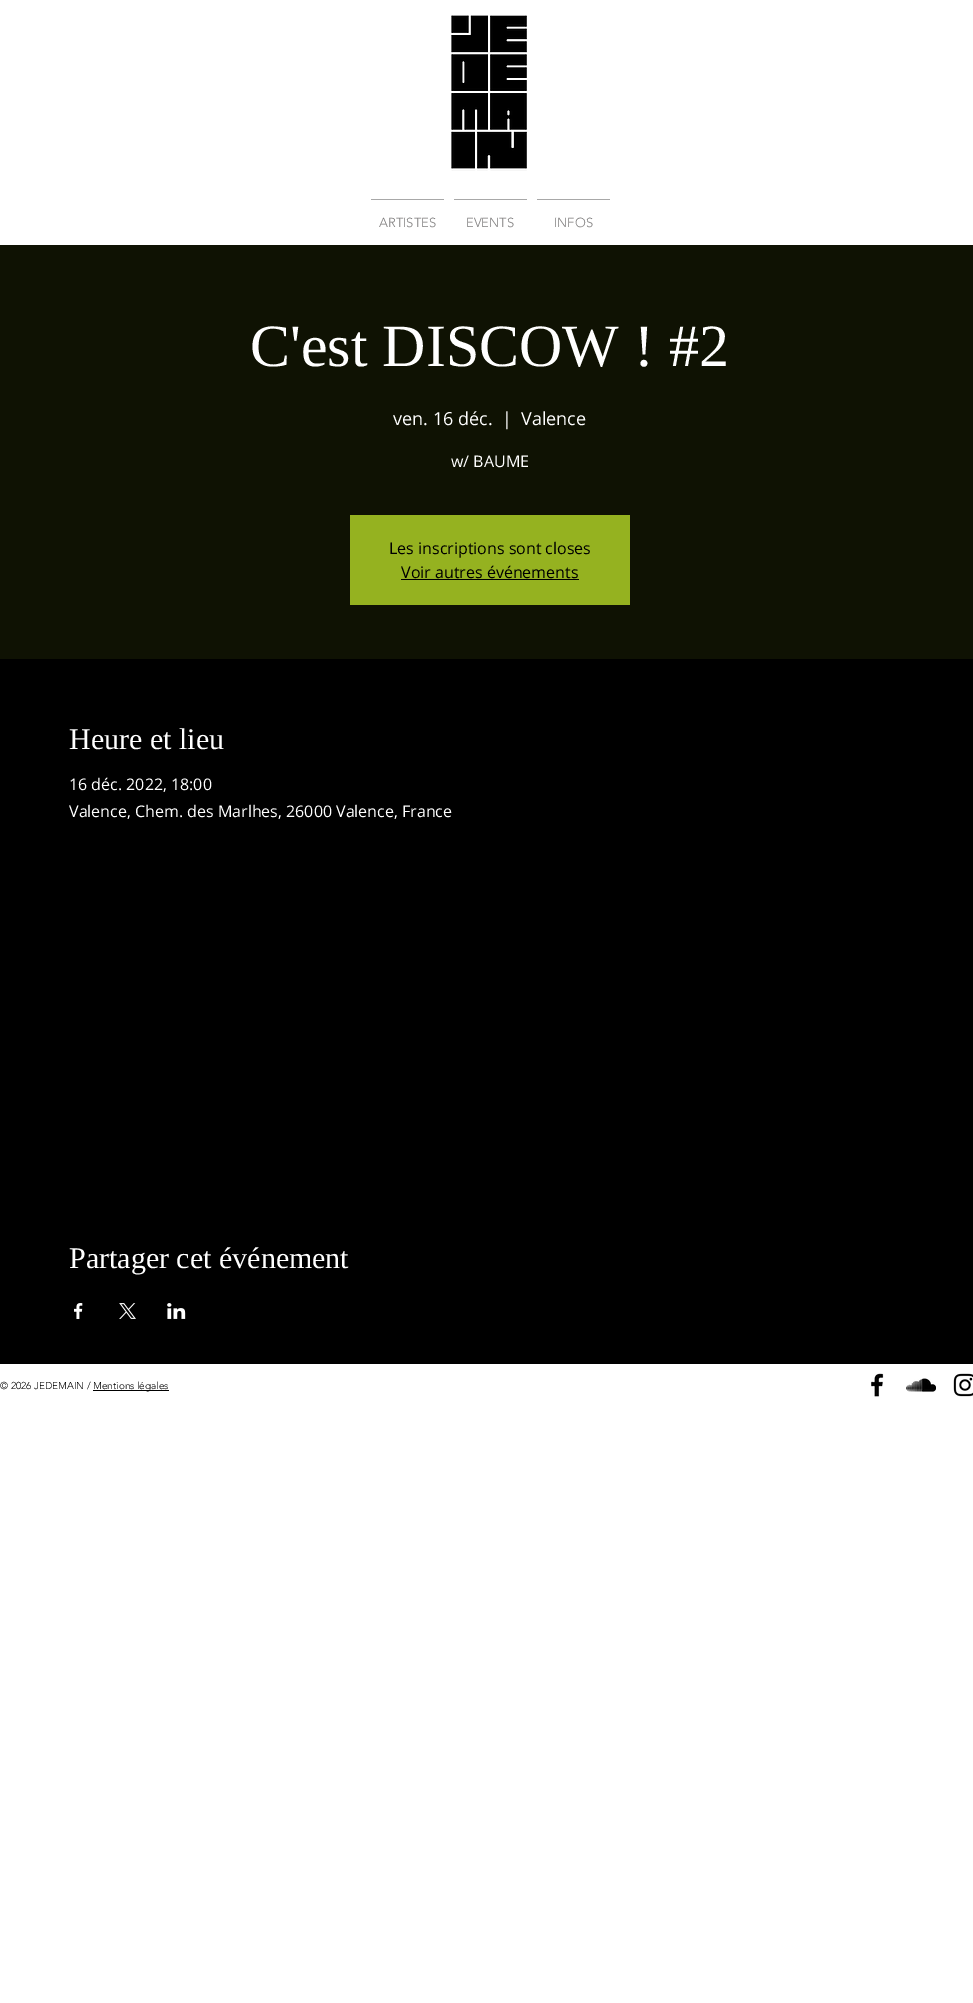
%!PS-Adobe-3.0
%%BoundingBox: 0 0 973 2003
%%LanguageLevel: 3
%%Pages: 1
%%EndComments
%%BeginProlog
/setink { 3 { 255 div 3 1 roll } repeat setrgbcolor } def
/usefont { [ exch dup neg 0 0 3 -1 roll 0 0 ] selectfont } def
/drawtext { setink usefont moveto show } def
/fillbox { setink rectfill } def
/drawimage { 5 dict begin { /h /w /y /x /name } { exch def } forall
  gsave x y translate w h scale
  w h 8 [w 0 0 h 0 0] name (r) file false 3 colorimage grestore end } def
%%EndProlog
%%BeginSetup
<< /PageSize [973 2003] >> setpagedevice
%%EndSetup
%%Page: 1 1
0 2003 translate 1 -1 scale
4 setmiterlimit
0 0 973 2003 255 255 255 fillbox
(assets/img1.rgb) 451 15 76 156 drawimage
371 199 73 1 168 168 168 fillbox
(ARTISTES) 379 227 /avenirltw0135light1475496-Light 13 127 126 126 drawtext
454 199 73 1 168 168 168 fillbox
(EVENTS) 466 227 /avenirltw0135light1475496-Light 13 127 126 126 drawtext
537 199 73 1 168 168 168 fillbox
(INFOS) 554 227 /avenirltw0135light1475496-Light 13 127 126 126 drawtext
0 245 973 414 15 18 3 fillbox
(C'est DISCOW ! #2) 250 366 /LiberationSerif-Regular 60 255 255 255 drawtext
(ven. 16 déc.) 393 425 /OpenSans-Regular 18 255 255 255 drawtext
(|) 502 425 /OpenSans-Regular 18 255 255 255 drawtext
(Valence) 521 425 /OpenSans-Regular 18 255 255 255 drawtext
(w/ BAUME) 451 467 /OpenSans-Regular 16 255 255 255 drawtext
350 515 280 90 149 178 32 fillbox
(Les inscriptions sont closes) 389 554 /OpenSans-Regular 16 0 0 0 drawtext
(Voir autres événements) 401 578 /OpenSans-Regular 16 0 0 0 drawtext
401 579 178 1 0 0 0 fillbox
0 659 973 705 0 0 0 fillbox
(Heure et lieu) 69 749 /LiberationSerif-Regular 30 255 255 255 drawtext
(16 déc. 2022, 18:00) 69 790 /OpenSans-Regular 16 255 255 255 drawtext
(Valence, Chem. des Marlhes, 26000 Valence, France) 69 817 /OpenSans-Regular 16 255 255 255 drawtext
(Partager cet événement) 69 1268 /LiberationSerif-Regular 30 255 255 255 drawtext
(assets/img2.rgb) 74 1303 9 16 drawimage
(assets/img3.rgb) 119 1303 17 16 drawimage
(assets/img4.rgb) 167 1303 19 16 drawimage
(© 2026 JEDEMAIN /) 0 1389 /avenirltw0135light1475496-Light 10 0 0 0 drawtext
93 1390 76 1 0 0 0 fillbox
(Mentions légales) 93 1389 /avenirltw0135light1475496-Light 10 0 0 0 drawtext
(assets/img5.rgb) 871 1373 13 24 drawimage
(assets/img6.rgb) 906 1378 30 14 drawimage
(assets/img7.rgb) 953 1373 20 24 drawimage
showpage
%%EOF
